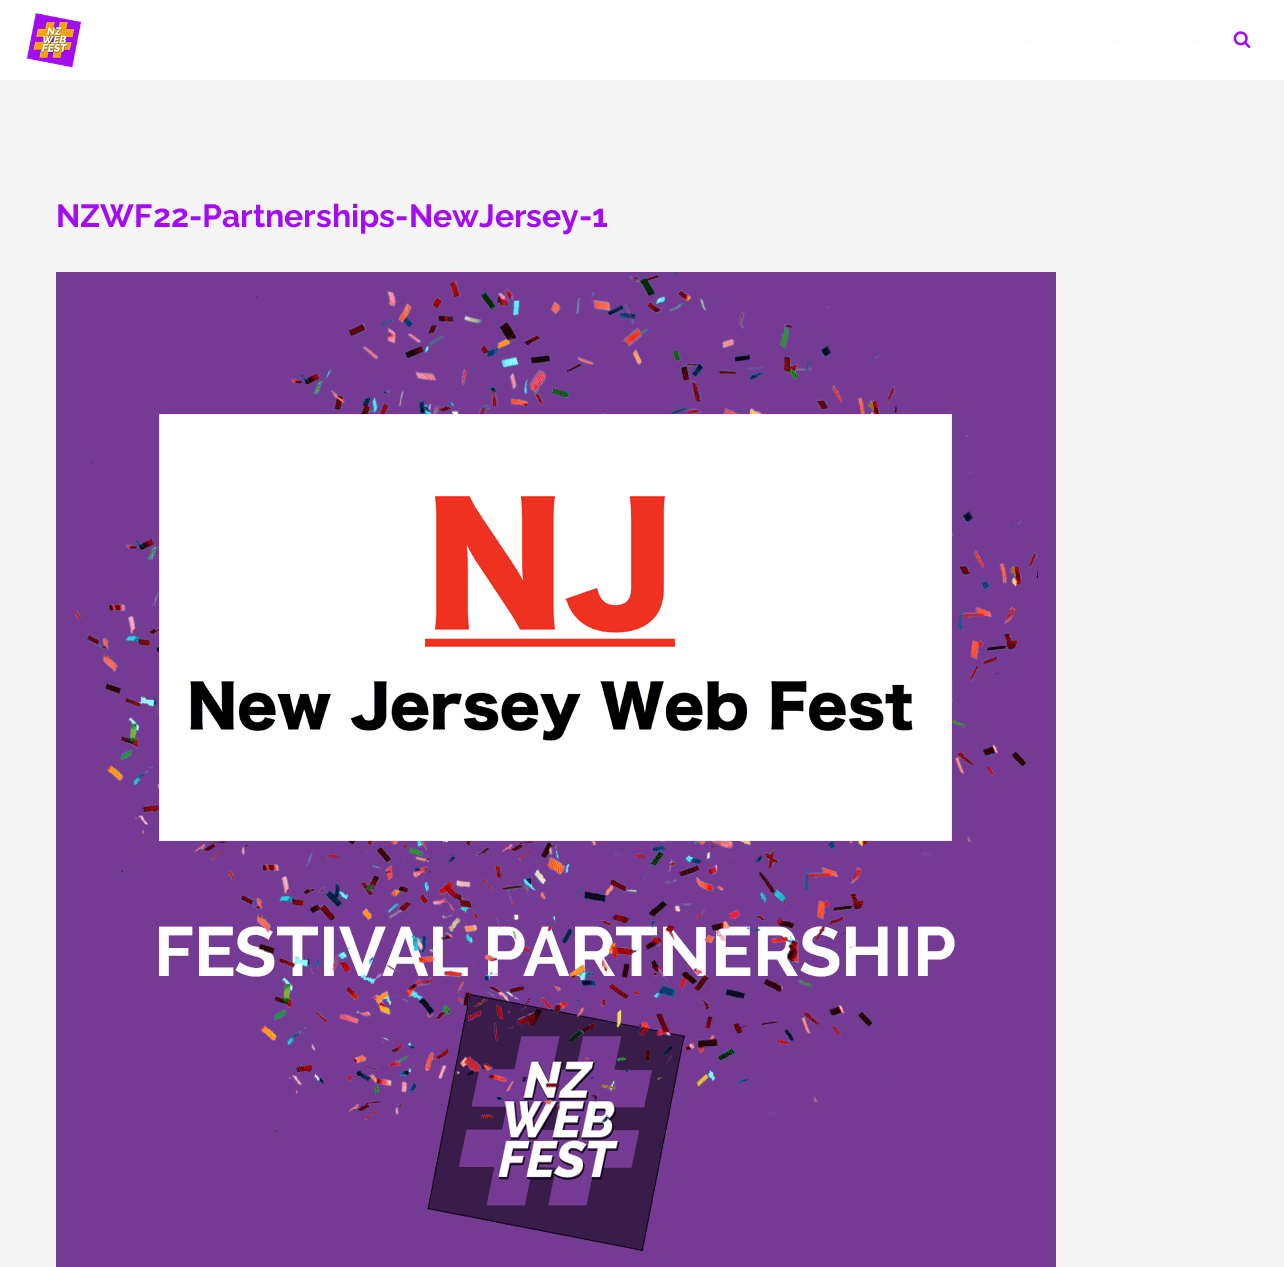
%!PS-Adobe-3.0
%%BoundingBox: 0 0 1284 1267
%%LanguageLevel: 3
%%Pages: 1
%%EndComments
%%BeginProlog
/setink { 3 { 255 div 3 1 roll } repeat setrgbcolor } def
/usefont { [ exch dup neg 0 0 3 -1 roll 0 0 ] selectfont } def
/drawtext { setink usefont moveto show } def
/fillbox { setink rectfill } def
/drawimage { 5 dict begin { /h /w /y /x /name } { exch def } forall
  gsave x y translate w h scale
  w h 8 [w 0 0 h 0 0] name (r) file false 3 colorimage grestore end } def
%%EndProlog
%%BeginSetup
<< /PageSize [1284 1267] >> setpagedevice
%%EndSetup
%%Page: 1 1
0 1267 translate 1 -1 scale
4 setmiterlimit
0 0 1284 1267 245 245 245 fillbox
0 0 1284 80 255 255 255 fillbox
(assets/img1.rgb) 26 13 56 55 drawimage
(assets/img2.rgb) 1024 40 7 4 drawimage
(assets/img2.rgb) 1115 40 7 4 drawimage
(assets/img2.rgb) 1195 40 7 4 drawimage
(assets/img3.rgb) 1233 31 18 17 drawimage
(NZWF22-Partnerships-NewJersey-1) 56 227 /Raleway-Bold 32 164 12 243 drawtext
(assets/img4.rgb) 56 272 1000 995 drawimage
showpage
%%EOF
